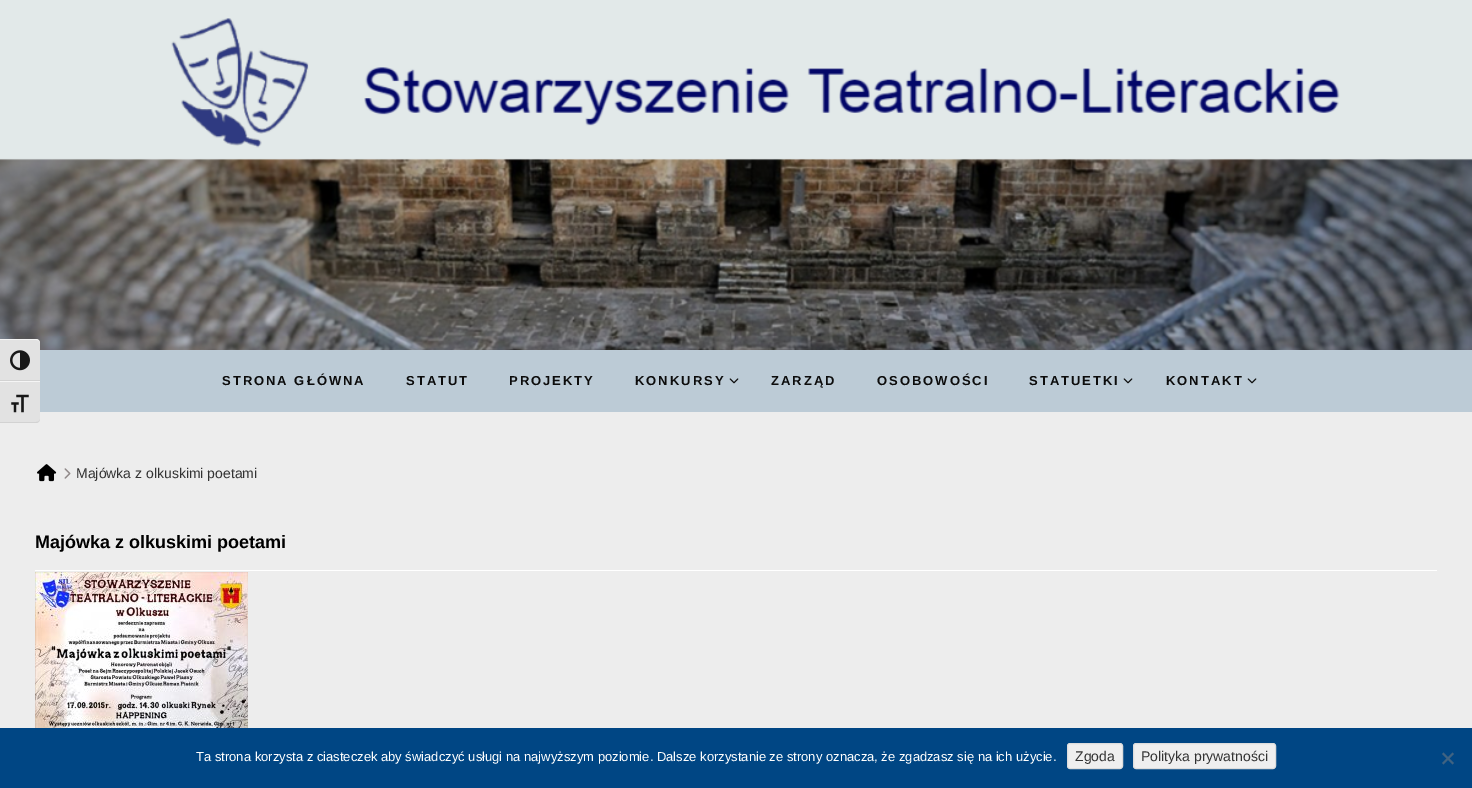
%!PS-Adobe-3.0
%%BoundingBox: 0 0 1472 788
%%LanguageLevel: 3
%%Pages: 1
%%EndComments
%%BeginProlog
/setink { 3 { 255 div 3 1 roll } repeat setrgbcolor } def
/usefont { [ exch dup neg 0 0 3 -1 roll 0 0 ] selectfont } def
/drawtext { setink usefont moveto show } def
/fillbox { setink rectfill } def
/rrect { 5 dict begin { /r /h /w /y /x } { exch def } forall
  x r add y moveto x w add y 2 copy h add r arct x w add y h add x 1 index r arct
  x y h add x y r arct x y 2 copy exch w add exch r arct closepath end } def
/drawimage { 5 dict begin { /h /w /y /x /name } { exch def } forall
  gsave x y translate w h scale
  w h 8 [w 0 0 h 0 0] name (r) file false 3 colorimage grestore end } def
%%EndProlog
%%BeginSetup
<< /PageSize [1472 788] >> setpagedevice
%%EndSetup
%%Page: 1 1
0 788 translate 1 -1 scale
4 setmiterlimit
0 0 1472 788 188 203 214 fillbox
(assets/img3.rgb) 0 0 1472 350 drawimage
226 226 226 setink
0 339 moveto 36 339 lineto 38 339 40 341 40 343 curveto 40 381 lineto 0 381 lineto closepath fill
245 245 245 setink
0 339 moveto 0 340 lineto 36 340 lineto 38 340 40 341 40 343 curveto 40 341 38 339 36 339 curveto closepath fill
0 380 40 1 210 210 210 fillbox
(assets/img1.rgb) 10 350 20 21 drawimage
0 412 1472 316 237 237 237 fillbox
226 226 226 setink
0 381 moveto 40 381 lineto 40 419 lineto 40 421 38 423 36 423 curveto 0 423 lineto closepath fill
0 381 40 1 245 245 245 fillbox
210 210 210 setink
0 422 moveto 0 423 lineto 36 423 lineto 38 423 40 421 40 419 curveto 40 421 38 422 36 422 curveto closepath fill
(assets/img2.rgb) 11 394 18 19 drawimage
/LiberationSans-Bold 13 usefont
12 12 12 setink
222 385 moveto 2 0 (STRONA GŁÓWNA) ashow
406 385 moveto 2 0 (STATUT) ashow
509 385 moveto 2 0 (PROJEKTY) ashow
635 385 moveto 2 0 (KONKURSY) ashow
(assets/img4.rgb) 729 378 10 6 drawimage
771 385 moveto 2 0 (ZARZĄD) ashow
877 385 moveto 2 0 (OSOBOWOŚCI) ashow
1029 385 moveto 2 0 (STATUETKI) ashow
(assets/img4.rgb) 1123 378 10 6 drawimage
1166 385 moveto 2 0 (KONTAKT) ashow
(assets/img4.rgb) 1247 378 10 6 drawimage
(assets/img5.rgb) 37 464 20 18 drawimage
(assets/img6.rgb) 64 468 7 11 drawimage
(Majówka z olkuskimi poetami) 76 478 /LiberationSans-Regular 14 51 51 51 drawtext
(Majówka z olkuskimi poetami) 35 548 /LiberationSans-Bold 18 0 0 0 drawtext
35 570 1402 1 255 255 255 fillbox
(assets/img7.rgb) 35 572 213 156 drawimage
0 728 1472 60 0 70 132 fillbox
(Ta strona korzysta z ciasteczek aby świadczyć usługi na najwyższym poziomie. Dalsze korzystanie ze strony oznacza, że zgadzasz się na ich użycie.) 196 761 /LiberationSans-Regular 13 255 255 255 drawtext
239 239 239 setink
1067.5 743.5 55 25 2.5 rrect gsave fill grestore
221 221 221 setink
stroke
(Zgoda) 1075 761 /LiberationSans-Regular 14 51 51 51 drawtext
239 239 239 setink
1133.5 743.5 142 25 2.5 rrect gsave fill grestore
221 221 221 setink
stroke
(Polityka prywatności) 1141 761 /LiberationSans-Regular 14 51 51 51 drawtext
64 99 130 setink
1452.5 752.5 moveto 1454 754 lineto 1443.5 764.5 lineto 1442 763 lineto closepath fill
1442 754 moveto 1443.5 752.5 lineto 1454 763 lineto 1452.5 764.5 lineto closepath fill
showpage
%%EOF
